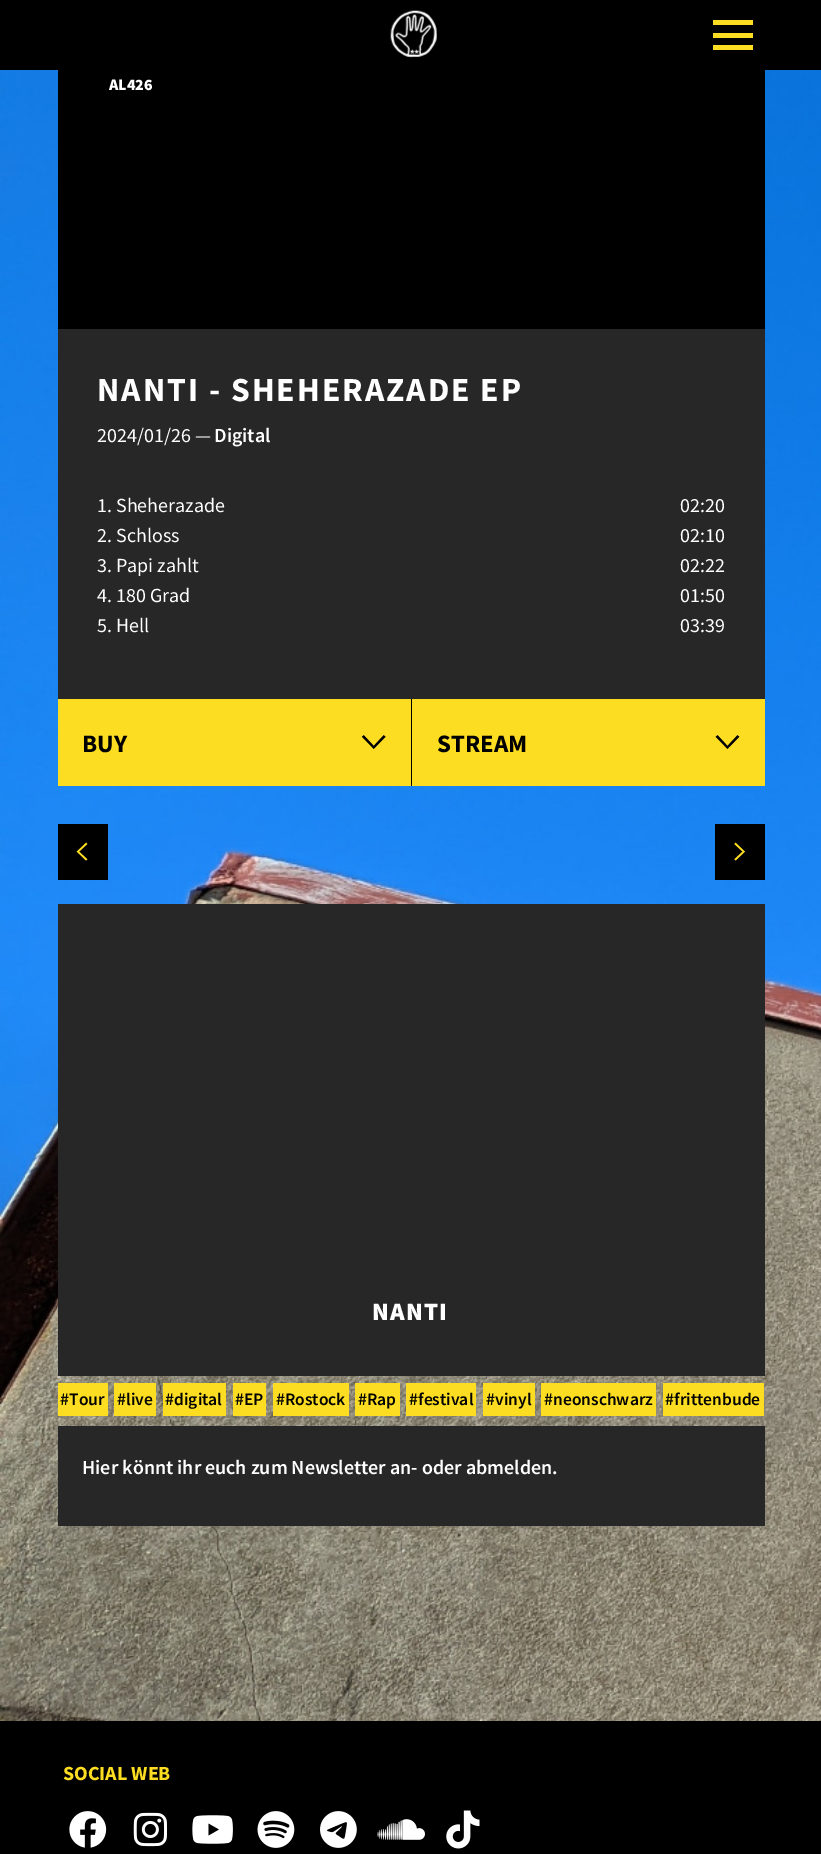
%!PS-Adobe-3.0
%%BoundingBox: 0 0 821 1854
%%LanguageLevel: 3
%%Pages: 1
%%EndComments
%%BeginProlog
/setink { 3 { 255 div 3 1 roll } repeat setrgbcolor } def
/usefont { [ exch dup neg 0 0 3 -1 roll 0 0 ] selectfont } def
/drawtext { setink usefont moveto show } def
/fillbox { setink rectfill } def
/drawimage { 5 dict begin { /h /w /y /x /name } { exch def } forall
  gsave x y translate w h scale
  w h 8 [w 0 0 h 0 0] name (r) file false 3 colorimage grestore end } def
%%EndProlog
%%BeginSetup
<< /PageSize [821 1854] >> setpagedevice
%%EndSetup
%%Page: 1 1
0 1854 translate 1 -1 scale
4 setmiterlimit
0 0 821 1854 255 255 255 fillbox
(assets/img1.rgb) 0 70 821 1651 drawimage
0 0 821 70 0 0 0 fillbox
(assets/img2.rgb) 390 10 47 48 drawimage
713 33 40 5 252 221 34 fillbox
713 20 40 5 252 221 34 fillbox
713 45 40 5 252 221 34 fillbox
58 70 707 259 0 0 0 fillbox
(AL426) 109 90 /SourceSansPro-Black 16 255 255 255 drawtext
58 329 707 370 39 39 39 fillbox
/SourceSansPro-Bold 33.75 usefont
255 255 255 setink
97 401 moveto 2 0 (NANTI - SHEHERAZADE EP) ashow
(2024/01/26 —) 97 442 /SourceSansPro-Regular 20 255 255 255 drawtext
(Digital) 214 442 /SourceSansPro-SemiBold 20 255 255 255 drawtext
(1. Sheherazade) 97 512 /SourceSansPro-Regular 20 255 255 255 drawtext
(02:20) 680 512 /SourceSansPro-Regular 20 255 255 255 drawtext
(2. Schloss) 97 542 /SourceSansPro-Regular 20 255 255 255 drawtext
(02:10) 680 542 /SourceSansPro-Regular 20 255 255 255 drawtext
(3. Papi zahlt) 97 572 /SourceSansPro-Regular 20 255 255 255 drawtext
(02:22) 680 572 /SourceSansPro-Regular 20 255 255 255 drawtext
(4. 180 Grad) 97 602 /SourceSansPro-Regular 20 255 255 255 drawtext
(01:50) 680 602 /SourceSansPro-Regular 20 255 255 255 drawtext
(5. Hell) 97 632 /SourceSansPro-Regular 20 255 255 255 drawtext
(03:39) 680 632 /SourceSansPro-Regular 20 255 255 255 drawtext
58 699 353 87 252 221 34 fillbox
(BUY) 82 752 /SourceSansPro-Bold 25 0 0 0 drawtext
(assets/img3.rgb) 361 735 25 14 drawimage
412 699 353 87 252 221 34 fillbox
411 699 1 87 0 0 0 fillbox
(STREAM) 437 752 /SourceSansPro-Bold 25 0 0 0 drawtext
(assets/img4.rgb) 715 735 25 14 drawimage
58 824 50 56 0 0 0 fillbox
(assets/img5.rgb) 76 842 12 19 drawimage
715 824 50 56 0 0 0 fillbox
(assets/img6.rgb) 734 842 11 19 drawimage
58 904 707 472 39 39 39 fillbox
/SourceSansPro-Black 25 usefont
255 255 255 setink
372 1320 moveto 1.25 0 (NANTI) ashow
58 1383 50 33 252 221 34 fillbox
(#Tour) 60 1405 /SourceSansPro-SemiBold 17.5 0 0 0 drawtext
114 1383 42 33 252 221 34 fillbox
(#live) 117 1405 /SourceSansPro-SemiBold 17.5 0 0 0 drawtext
163 1383 63 33 252 221 34 fillbox
(#digital) 165 1405 /SourceSansPro-SemiBold 17.5 0 0 0 drawtext
233 1383 33 33 252 221 34 fillbox
(#EP) 235 1405 /SourceSansPro-SemiBold 17.5 0 0 0 drawtext
273 1383 76 33 252 221 34 fillbox
(#Rostock) 276 1405 /SourceSansPro-SemiBold 17.5 0 0 0 drawtext
355 1383 45 33 252 221 34 fillbox
(#Rap) 358 1405 /SourceSansPro-SemiBold 17.5 0 0 0 drawtext
406 1383 70 33 252 221 34 fillbox
(#festival) 409 1405 /SourceSansPro-SemiBold 17.5 0 0 0 drawtext
483 1383 52 33 252 221 34 fillbox
(#vinyl) 486 1405 /SourceSansPro-SemiBold 17.5 0 0 0 drawtext
541 1383 115 33 252 221 34 fillbox
(#neonschwarz) 544 1405 /SourceSansPro-SemiBold 17.5 0 0 0 drawtext
663 1383 101 33 252 221 34 fillbox
(#frittenbude) 665 1405 /SourceSansPro-SemiBold 17.5 0 0 0 drawtext
58 1426 707 100 39 39 39 fillbox
(Hier könnt ihr euch zum Newsletter an- oder abmelden.) 82 1474 /SourceSansPro-SemiBold 20 255 255 255 drawtext
0 1721 821 133 0 0 0 fillbox
(SOCIAL WEB) 63 1780 /SourceSansPro-Bold 20 252 221 34 drawtext
(assets/img7.rgb) 69 1811 38 37 drawimage
(assets/img8.rgb) 133 1812 34 35 drawimage
(assets/img9.rgb) 192 1815 41 29 drawimage
(assets/img10.rgb) 257 1811 38 37 drawimage
(assets/img11.rgb) 320 1811 37 37 drawimage
(assets/img12.rgb) 377 1819 48 21 drawimage
(assets/img13.rgb) 446 1810 34 39 drawimage
showpage
%%EOF
